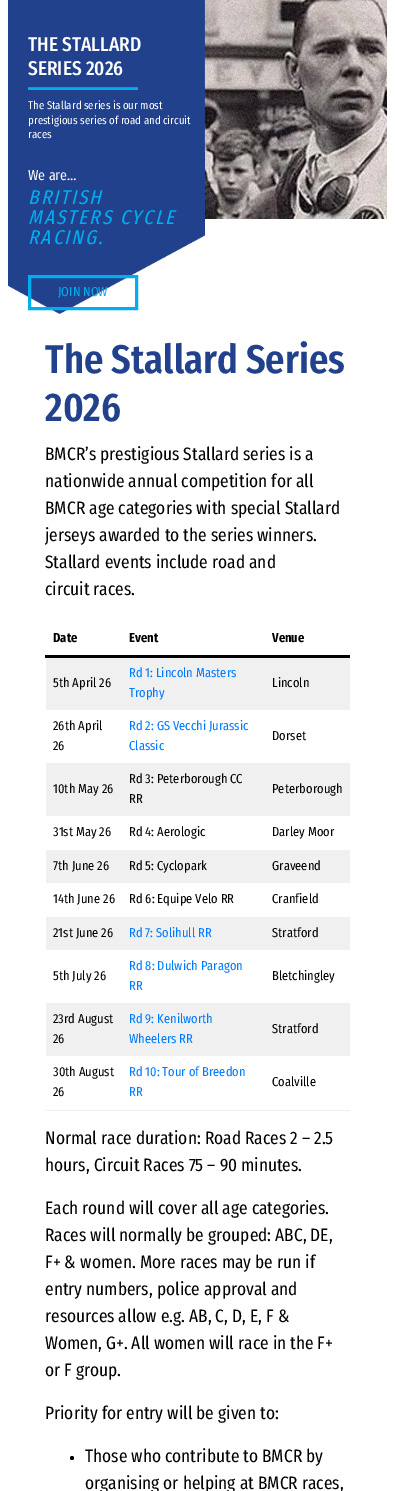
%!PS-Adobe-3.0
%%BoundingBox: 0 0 395 1491
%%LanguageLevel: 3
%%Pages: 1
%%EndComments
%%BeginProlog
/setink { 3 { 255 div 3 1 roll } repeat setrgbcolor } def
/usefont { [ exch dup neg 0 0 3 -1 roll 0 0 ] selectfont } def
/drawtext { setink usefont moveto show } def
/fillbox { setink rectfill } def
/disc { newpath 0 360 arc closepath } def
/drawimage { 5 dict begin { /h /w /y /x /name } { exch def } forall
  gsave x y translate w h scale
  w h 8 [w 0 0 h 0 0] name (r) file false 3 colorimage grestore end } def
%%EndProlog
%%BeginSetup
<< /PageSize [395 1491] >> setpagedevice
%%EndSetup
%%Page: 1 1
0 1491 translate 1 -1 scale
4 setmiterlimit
0 0 395 1491 255 255 255 fillbox
(assets/img1.rgb) 204 0 183 219 drawimage
(assets/img2.rgb) 8 0 197 314 drawimage
(THE STALLARD) 28 51 /FiraSansCondensed-Medium 20 255 255 255 drawtext
(SERIES 2026) 28 75 /FiraSansCondensed-Medium 20 255 255 255 drawtext
28 88 110 2 0 174 239 fillbox
28 87 110 1 0 157 215 fillbox
(The Stallard series is our most) 28 109 /FiraSansCondensed-Regular 11.25 255 255 255 drawtext
(prestigious series of road and circuit) 28 124 /FiraSansCondensed-Regular 11.25 255 255 255 drawtext
(races) 28 138 /FiraSansCondensed-Regular 11.25 255 255 255 drawtext
(We are…) 28 180 /FiraSansCondensed-Regular 14.5 255 255 255 drawtext
/FiraSansCondensed-Italic 20 usefont
0 174 239 setink
28 204 moveto 2 0 (BRITISH) ashow
28 224 moveto 2 0 (MASTERS CYCLE) ashow
28 244 moveto 2 0 (RACING.) ashow
3 setlinewidth
29.5 276.5 107 32 rectstroke
(JOIN NOW) 58 296 /FiraSansCondensed-Regular 13 0 174 239 drawtext
(The Stallard Series) 45 373 /FiraSansCondensed-SemiBold 40 33 65 140 drawtext
(2026) 45 421 /FiraSansCondensed-SemiBold 40 33 65 140 drawtext
(BMCR’s prestigious Stallard series is a) 45 460 /FiraSansCondensed-Regular 18 0 0 0 drawtext
(nationwide annual competition for all) 45 487 /FiraSansCondensed-Regular 18 0 0 0 drawtext
(BMCR age categories with special Stallard) 45 514 /FiraSansCondensed-Regular 18 0 0 0 drawtext
(jerseys awarded to the series winners.) 45 541 /FiraSansCondensed-Regular 18 0 0 0 drawtext
(Stallard events include road and) 45 568 /FiraSansCondensed-Regular 18 0 0 0 drawtext
(circuit races.) 45 595 /FiraSansCondensed-Regular 18 0 0 0 drawtext
45 1110 305 1 240 240 240 fillbox
45 655 305 3 0 0 0 fillbox
(Date) 53 642 /FiraSansCondensed-Bold 13 0 0 0 drawtext
(Event) 129 642 /FiraSansCondensed-Bold 13 0 0 0 drawtext
(Venue) 272 642 /FiraSansCondensed-Bold 13 0 0 0 drawtext
46 658 304 52 240 240 240 fillbox
(5th April 26) 53 687 /FiraSansCondensed-Regular 13 0 0 0 drawtext
(Rd 1: Lincoln Masters) 129 677 /FiraSansCondensed-Regular 13 0 123 255 drawtext
(Trophy) 129 697 /FiraSansCondensed-Regular 13 0 123 255 drawtext
(Lincoln) 272 687 /FiraSansCondensed-Regular 13 0 0 0 drawtext
(26th April) 53 730 /FiraSansCondensed-Regular 13 0 0 0 drawtext
(26) 53 750 /FiraSansCondensed-Regular 13 0 0 0 drawtext
(Rd 2: GS Vecchi Jurassic) 129 730 /FiraSansCondensed-Regular 13 0 123 255 drawtext
(Classic) 129 750 /FiraSansCondensed-Regular 13 0 123 255 drawtext
(Dorset) 272 740 /FiraSansCondensed-Regular 13 0 0 0 drawtext
46 763 304 53 240 240 240 fillbox
(10th May 26) 53 793 /FiraSansCondensed-Regular 13 0 0 0 drawtext
(Rd 3: Peterborough CC) 129 783 /FiraSansCondensed-Regular 13 0 0 0 drawtext
(RR) 129 803 /FiraSansCondensed-Regular 13 0 0 0 drawtext
(Peterborough) 272 793 /FiraSansCondensed-Regular 13 0 0 0 drawtext
(31st May 26) 53 836 /FiraSansCondensed-Regular 13 0 0 0 drawtext
(Rd 4: Aerologic) 129 836 /FiraSansCondensed-Regular 13 0 0 0 drawtext
(Darley Moor) 272 836 /FiraSansCondensed-Regular 13 0 0 0 drawtext
46 850 304 33 240 240 240 fillbox
(7th June 26) 53 870 /FiraSansCondensed-Regular 13 0 0 0 drawtext
(Rd 5: Cyclopark) 129 870 /FiraSansCondensed-Regular 13 0 0 0 drawtext
(Graveend) 272 870 /FiraSansCondensed-Regular 13 0 0 0 drawtext
(14th June 26) 53 903 /FiraSansCondensed-Regular 13 0 0 0 drawtext
(Rd 6: Equipe Velo RR) 129 903 /FiraSansCondensed-Regular 13 0 0 0 drawtext
(Cranfield) 272 903 /FiraSansCondensed-Regular 13 0 0 0 drawtext
46 917 304 33 240 240 240 fillbox
(21st June 26) 53 937 /FiraSansCondensed-Regular 13 0 0 0 drawtext
(Rd 7: Solihull RR) 129 937 /FiraSansCondensed-Regular 13 0 123 255 drawtext
(Stratford) 272 937 /FiraSansCondensed-Regular 13 0 0 0 drawtext
(5th July 26) 53 980 /FiraSansCondensed-Regular 13 0 0 0 drawtext
(Rd 8: Dulwich Paragon) 129 970 /FiraSansCondensed-Regular 13 0 123 255 drawtext
(RR) 129 990 /FiraSansCondensed-Regular 13 0 123 255 drawtext
(Bletchingley) 272 980 /FiraSansCondensed-Regular 13 0 0 0 drawtext
46 1003 304 53 240 240 240 fillbox
(23rd August) 53 1023 /FiraSansCondensed-Regular 13 0 0 0 drawtext
(26) 53 1043 /FiraSansCondensed-Regular 13 0 0 0 drawtext
(Rd 9: Kenilworth) 129 1023 /FiraSansCondensed-Regular 13 0 123 255 drawtext
(Wheelers RR) 129 1043 /FiraSansCondensed-Regular 13 0 123 255 drawtext
(Stratford) 272 1033 /FiraSansCondensed-Regular 13 0 0 0 drawtext
(30th August) 53 1076 /FiraSansCondensed-Regular 13 0 0 0 drawtext
(26) 53 1096 /FiraSansCondensed-Regular 13 0 0 0 drawtext
(Rd 10: Tour of Breedon) 129 1076 /FiraSansCondensed-Regular 13 0 123 255 drawtext
(RR) 129 1096 /FiraSansCondensed-Regular 13 0 123 255 drawtext
(Coalville) 272 1086 /FiraSansCondensed-Regular 13 0 0 0 drawtext
(Normal race duration: Road Races 2 – 2.5) 45 1144 /FiraSansCondensed-Regular 18 0 0 0 drawtext
(hours, Circuit Races 75 – 90 minutes.) 45 1171 /FiraSansCondensed-Regular 18 0 0 0 drawtext
(Each round will cover all age categories.) 45 1214 /FiraSansCondensed-Regular 18 0 0 0 drawtext
(Races will normally be grouped: ABC, DE,) 45 1241 /FiraSansCondensed-Regular 18 0 0 0 drawtext
(F+ & women. More races may be run if) 45 1268 /FiraSansCondensed-Regular 18 0 0 0 drawtext
(entry numbers, police approval and) 45 1295 /FiraSansCondensed-Regular 18 0 0 0 drawtext
(resources allow e.g. AB, C, D, E, F &) 45 1322 /FiraSansCondensed-Regular 18 0 0 0 drawtext
(Women, G+. All women will race in the F+) 45 1349 /FiraSansCondensed-Regular 18 0 0 0 drawtext
(or F group.) 45 1376 /FiraSansCondensed-Regular 18 0 0 0 drawtext
(Priority for entry will be given to:) 45 1419 /FiraSansCondensed-Regular 18 0 0 0 drawtext
72 1458 2 disc fill
(Those who contribute to BMCR by) 85 1462 /FiraSansCondensed-Regular 18 0 0 0 drawtext
(organising or helping at BMCR races,) 85 1489 /FiraSansCondensed-Regular 18 0 0 0 drawtext
showpage
%%EOF
